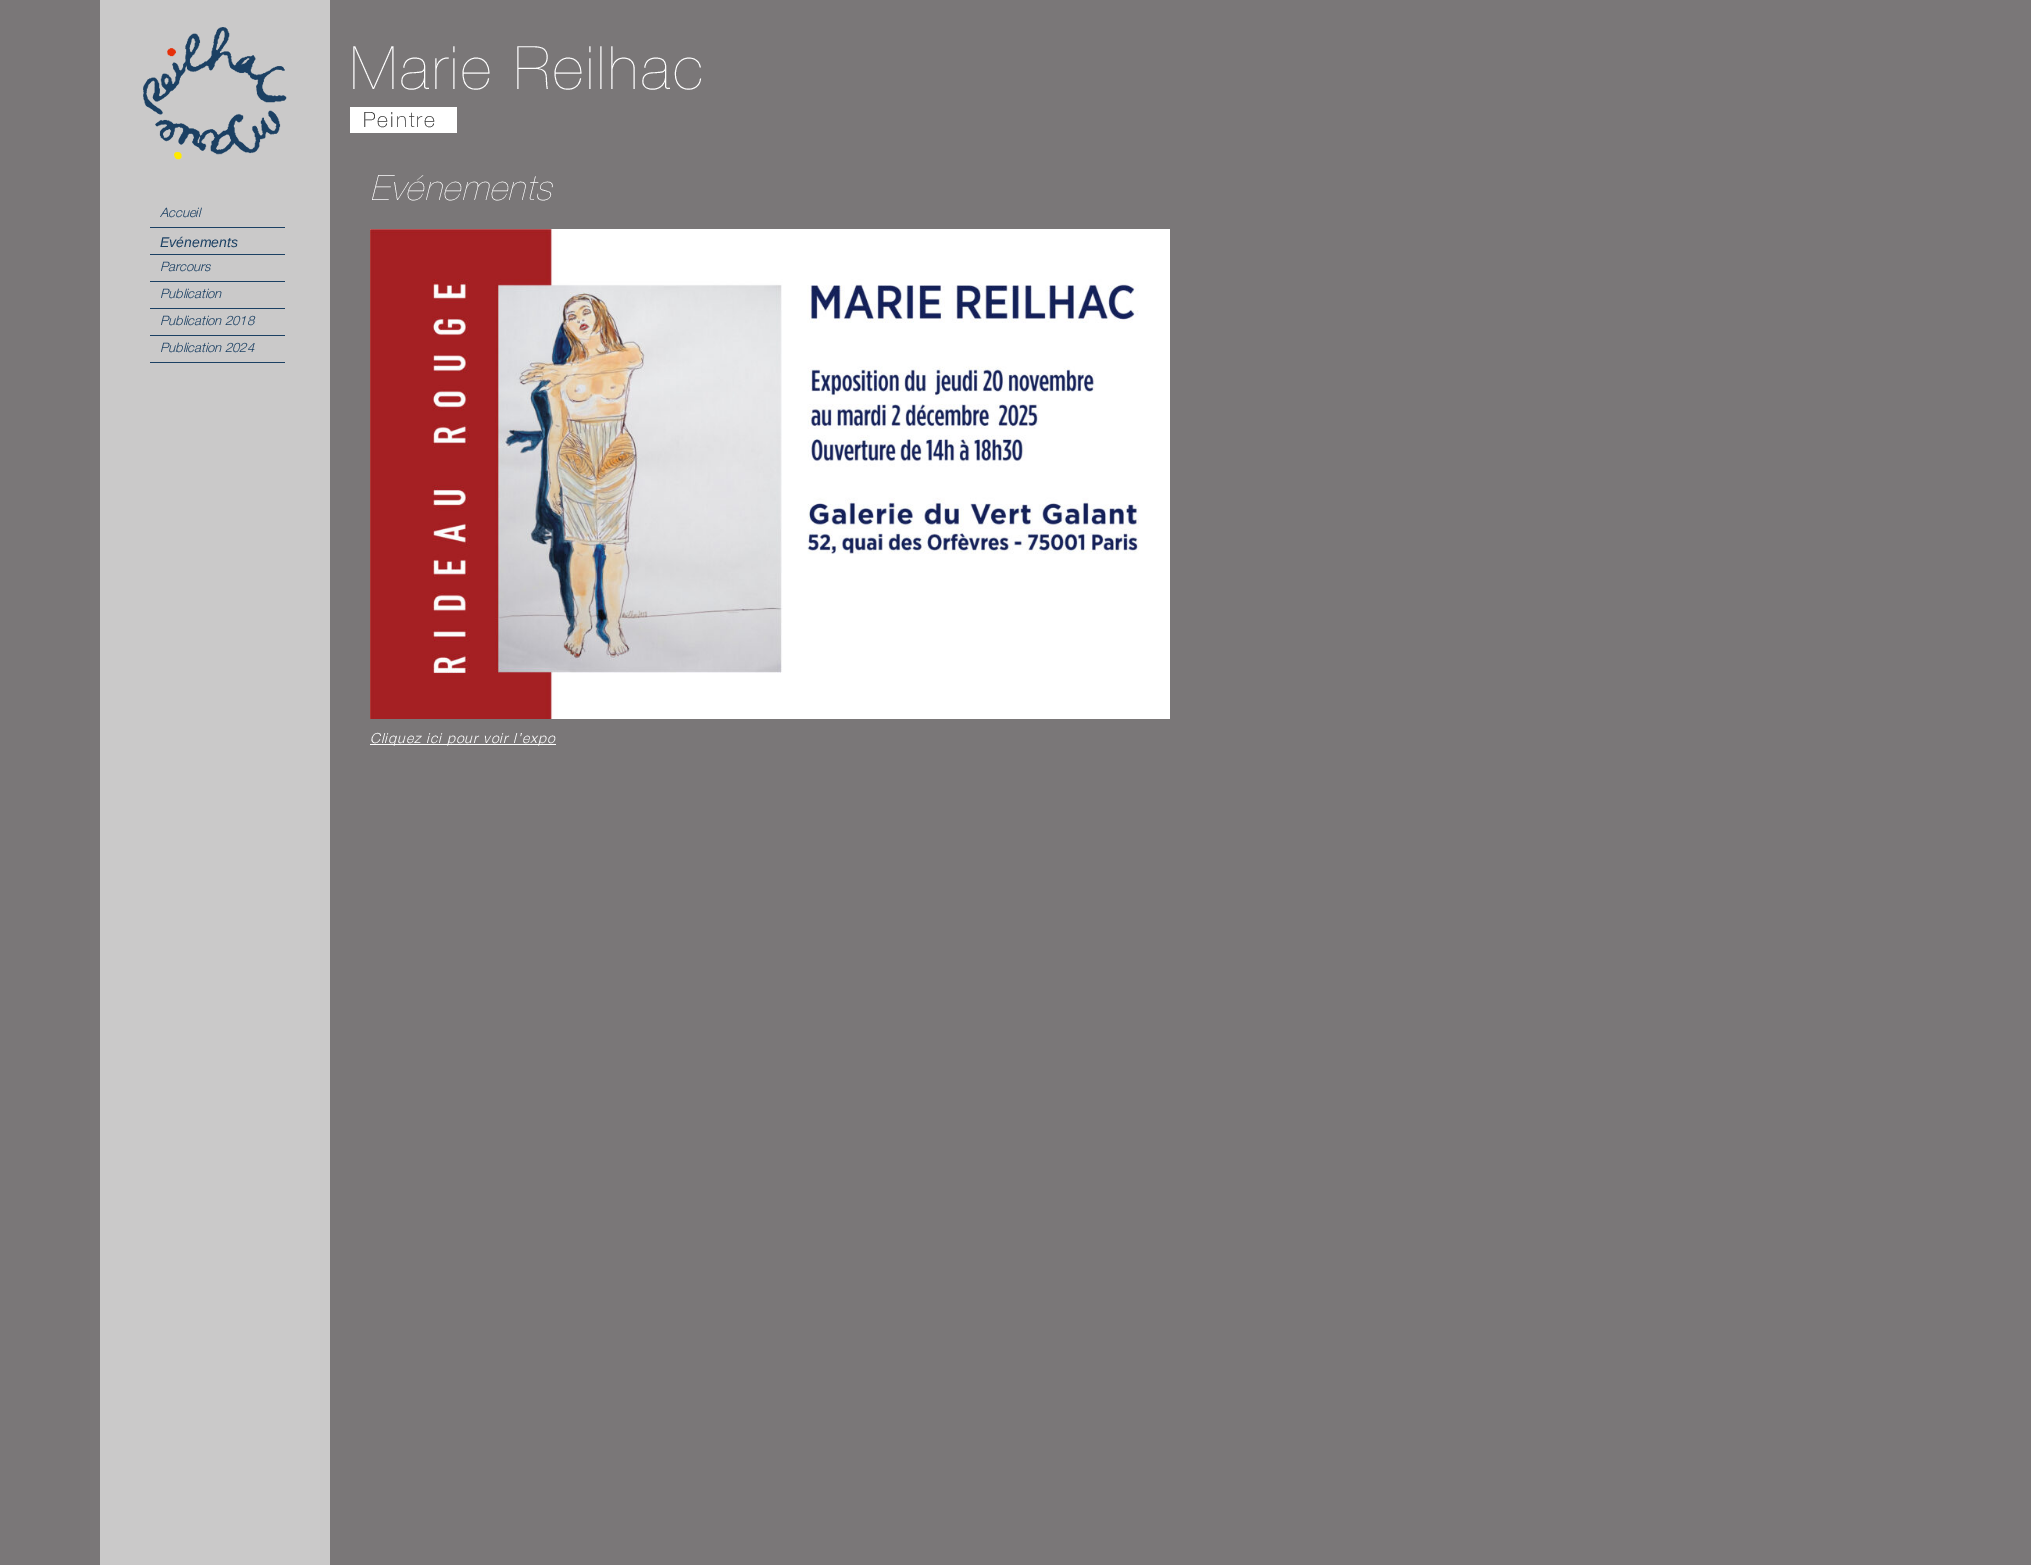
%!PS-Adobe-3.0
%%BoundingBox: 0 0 2031 1565
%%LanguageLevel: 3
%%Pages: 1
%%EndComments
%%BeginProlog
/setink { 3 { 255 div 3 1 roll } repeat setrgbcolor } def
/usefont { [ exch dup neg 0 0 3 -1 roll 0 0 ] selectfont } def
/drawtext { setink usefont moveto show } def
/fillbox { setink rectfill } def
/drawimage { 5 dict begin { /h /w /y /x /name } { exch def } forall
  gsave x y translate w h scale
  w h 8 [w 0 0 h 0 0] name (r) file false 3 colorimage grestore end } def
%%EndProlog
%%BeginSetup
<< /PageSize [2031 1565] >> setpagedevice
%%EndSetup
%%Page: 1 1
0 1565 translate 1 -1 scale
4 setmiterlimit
0 0 2031 1565 122 119 120 fillbox
/HelveticaNeue-Light 60 usefont
255 255 255 setink
350 89 moveto 3 0 (Marie Reilhac) ashow
350 107 107 26 255 255 255 fillbox
/HelveticaNeue-ExtraLight 21 usefont
51 51 51 setink
363 127 moveto 2 0 (Peintre) ashow
100 0 230 1565 202 201 201 fillbox
(assets/img1.rgb) 143 27 144 133 drawimage
150 227 135 1 27 64 99 fillbox
(Accueil) 160 217 /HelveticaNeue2-LightItalic 13 27 64 99 drawtext
150 254 135 1 27 64 99 fillbox
(Evénements) 160 247 /LiberationSans-Italic 14 27 64 99 drawtext
150 281 135 1 27 64 99 fillbox
(Parcours) 160 271 /HelveticaNeue2-LightItalic 13 27 64 99 drawtext
150 308 135 1 27 64 99 fillbox
(Publication) 160 298 /HelveticaNeue2-LightItalic 13 27 64 99 drawtext
150 335 135 1 27 64 99 fillbox
(Publication 2018) 160 325 /HelveticaNeue2-LightItalic 13 27 64 99 drawtext
150 362 135 1 27 64 99 fillbox
(Publication 2024) 160 352 /HelveticaNeue2-LightItalic 13 27 64 99 drawtext
/HelveticaNeue-LightItalic 35 usefont
255 255 255 setink
370 200 moveto 1 0 (Evénements) ashow
(assets/img2.rgb) 370 229 800 490 drawimage
370 744 186 1 255 255 255 fillbox
/HelveticaNeue2-LightItalic 14 usefont
370 743 moveto 1 0 (Cliquez ici pour voir l’expo) ashow
showpage
%%EOF
